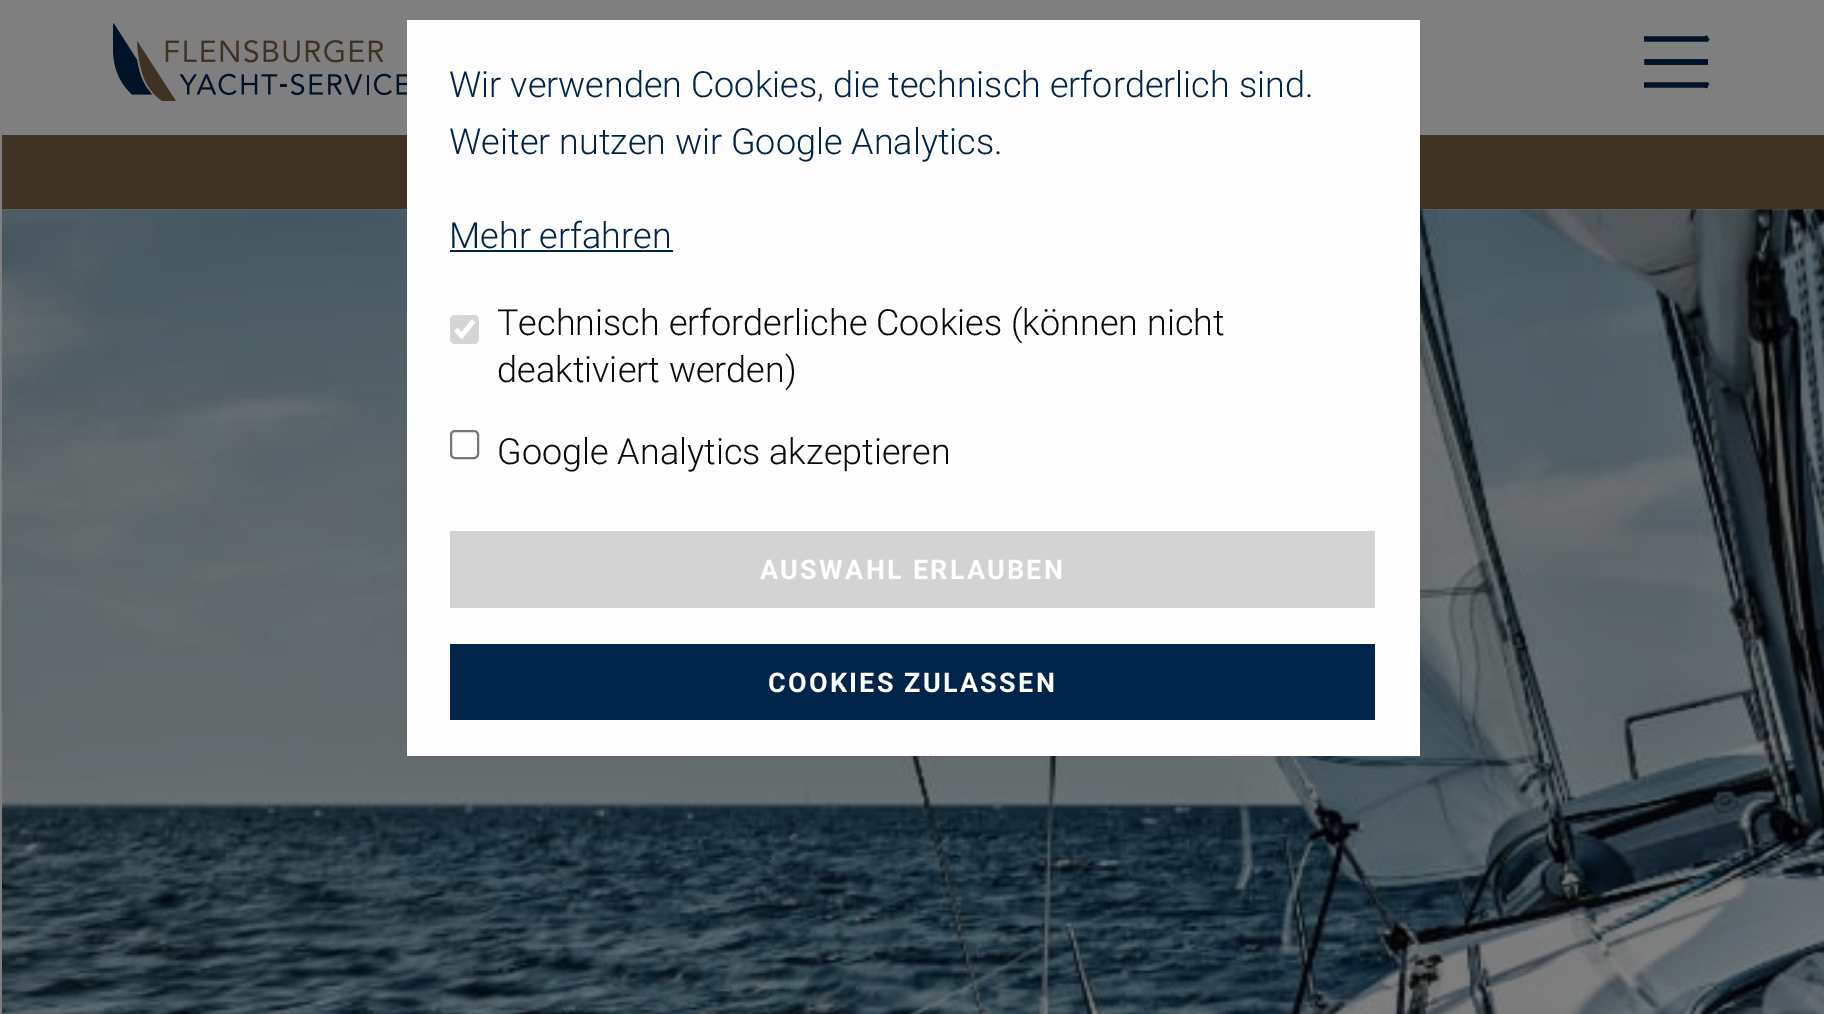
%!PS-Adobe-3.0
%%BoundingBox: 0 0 1824 1014
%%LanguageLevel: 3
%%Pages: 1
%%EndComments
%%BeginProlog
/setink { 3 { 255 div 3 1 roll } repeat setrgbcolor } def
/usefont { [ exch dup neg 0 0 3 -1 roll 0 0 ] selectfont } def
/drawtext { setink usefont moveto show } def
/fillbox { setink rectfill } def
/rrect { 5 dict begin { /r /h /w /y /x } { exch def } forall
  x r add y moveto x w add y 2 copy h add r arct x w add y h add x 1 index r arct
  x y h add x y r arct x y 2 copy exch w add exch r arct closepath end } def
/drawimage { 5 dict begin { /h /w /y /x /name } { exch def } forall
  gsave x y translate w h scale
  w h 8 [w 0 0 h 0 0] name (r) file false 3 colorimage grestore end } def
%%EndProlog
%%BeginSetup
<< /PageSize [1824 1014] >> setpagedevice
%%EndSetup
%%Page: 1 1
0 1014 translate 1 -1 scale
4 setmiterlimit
0 0 1824 1014 255 255 255 fillbox
0 0 1824 135 127 127 127 fillbox
(assets/img1.rgb) 113 23 294 78 drawimage
0 18 37 setink
5.3 setlinewidth
1644 85 moveto 1708 85 lineto stroke
1708 62 moveto 1644.5 62 lineto 1705.5 84.5 moveto 1708 86 lineto stroke
1708 62 moveto 1644.5 62 lineto 1705.5 39.5 moveto 1708 37.5 lineto stroke
1644 39 moveto 1708 39 lineto stroke
0 135 2 879 127 127 127 fillbox
2 135 1822 74 64 51 35 fillbox
(assets/img2.rgb) 2 209 1822 805 drawimage
407 20 1013 736 254 254 254 fillbox
(Wir verwenden Cookies, die technisch erforderlich sind.) 449 97 /Roboto-Light 36 0 36 74 drawtext
(Weiter nutzen wir Google Analytics.) 449 154 /Roboto-Light 36 0 36 74 drawtext
(Mehr erfahren) 449 248 /Roboto-Light 36 0 36 74 drawtext
450 250 223 2 0 36 74 fillbox
213 213 213 setink
450 315 29 29 5 rrect fill
255 255 255 setink
4.7 setlinewidth
456 329.5 moveto 461.5 335.5 lineto 473.5 321 lineto stroke
(Technisch erforderliche Cookies \(können nicht) 497 335 /Roboto-Light 36 10 10 10 drawtext
(deaktiviert werden\)) 497 382 /Roboto-Light 36 10 10 10 drawtext
118 118 118 setink
2 setlinewidth
451 431 27 27 4 rrect stroke
(Google Analytics akzeptieren) 497 464 /Roboto-Light 36 10 10 10 drawtext
450 531 925 77 211 211 211 fillbox
/Roboto-Bold 27 usefont
254 254 254 setink
760 579 moveto 2.25 0 (AUSWAHL ERLAUBEN) ashow
450 644 925 76 0 36 74 fillbox
254 254 254 setink
768 692 moveto 2.25 0 (COOKIES ZULASSEN) ashow
showpage
%%EOF
